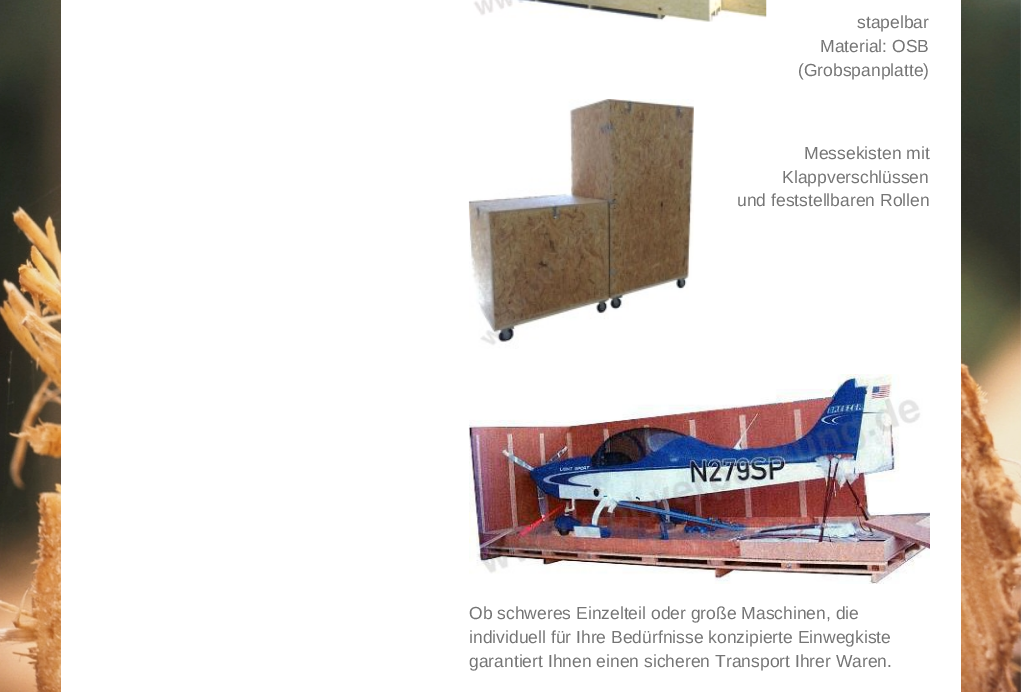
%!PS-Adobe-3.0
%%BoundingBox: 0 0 1021 692
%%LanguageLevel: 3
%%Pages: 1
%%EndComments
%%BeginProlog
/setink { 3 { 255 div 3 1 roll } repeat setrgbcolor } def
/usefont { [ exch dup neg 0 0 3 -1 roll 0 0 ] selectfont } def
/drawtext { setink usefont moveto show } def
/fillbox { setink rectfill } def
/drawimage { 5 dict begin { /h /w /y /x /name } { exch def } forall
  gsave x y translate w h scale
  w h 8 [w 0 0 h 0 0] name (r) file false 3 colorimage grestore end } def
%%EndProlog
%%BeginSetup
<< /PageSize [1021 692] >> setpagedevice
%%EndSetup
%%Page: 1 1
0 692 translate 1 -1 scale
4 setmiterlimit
0 0 1021 692 255 255 255 fillbox
(assets/img1.rgb) 0 0 1021 692 drawimage
61 0 900 692 255 255 255 fillbox
(assets/img2.rgb) 473 0 294 22 drawimage
(stapelbar) 857 28 /LiberationSans-Regular 17.5 117 117 117 drawtext
(Material: OSB) 820 52 /LiberationSans-Regular 17.5 117 117 117 drawtext
(\(Grobspanplatte\)) 798 76 /LiberationSans-Regular 17.5 117 117 117 drawtext
(assets/img3.rgb) 468 99 226 250 drawimage
(Messekisten mit) 804 159 /LiberationSans-Regular 17.5 117 117 117 drawtext
(Klappverschlüssen) 782 183 /LiberationSans-Regular 17.5 117 117 117 drawtext
(und feststellbaren Rollen) 737 206 /LiberationSans-Regular 17.5 117 117 117 drawtext
(assets/img4.rgb) 468 374 462 210 drawimage
(Ob schweres Einzelteil oder große Maschinen, die) 469 619 /LiberationSans-Regular 17.5 117 117 117 drawtext
(individuell für Ihre Bedürfnisse konzipierte Einwegkiste) 469 643 /LiberationSans-Regular 17.5 117 117 117 drawtext
(garantiert Ihnen einen sicheren Transport Ihrer Waren.) 469 667 /LiberationSans-Regular 17.5 117 117 117 drawtext
showpage
%%EOF
